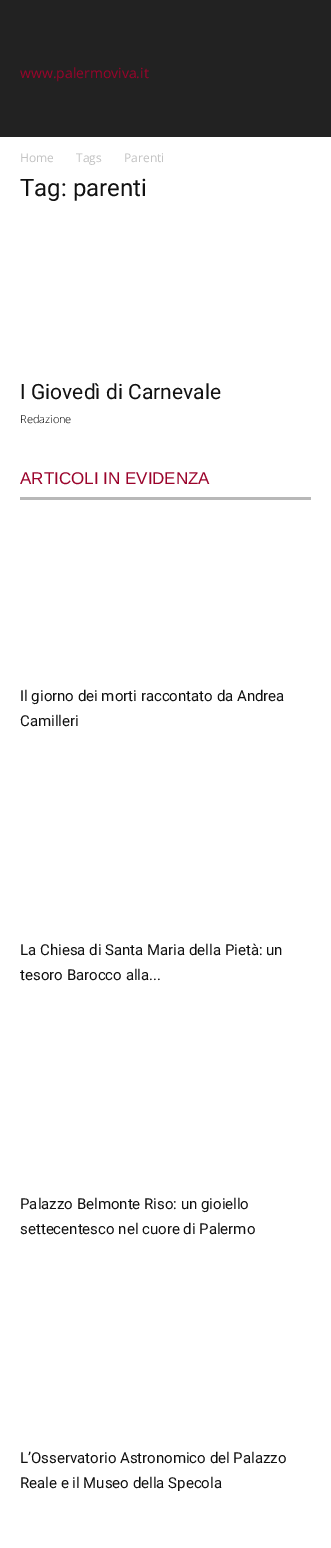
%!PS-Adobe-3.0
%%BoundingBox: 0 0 331 1548
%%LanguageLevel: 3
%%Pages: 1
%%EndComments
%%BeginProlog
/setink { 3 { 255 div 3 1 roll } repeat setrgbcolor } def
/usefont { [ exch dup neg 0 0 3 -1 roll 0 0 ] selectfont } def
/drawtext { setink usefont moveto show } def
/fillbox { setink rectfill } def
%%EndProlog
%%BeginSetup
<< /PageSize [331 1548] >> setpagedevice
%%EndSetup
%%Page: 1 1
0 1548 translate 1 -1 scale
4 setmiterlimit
0 0 331 1548 255 255 255 fillbox
0 0 331 137 34 34 34 fillbox
(www.palermoviva.it) 20 78 /OpenSans-Regular 14 155 3 43 drawtext
(Home) 20 162 /OpenSans-Regular 12 195 195 195 drawtext
(Tags) 76 162 /OpenSans-Regular 12 195 195 195 drawtext
(Parenti) 124 162 /OpenSans-Regular 12 195 195 195 drawtext
(Tag: parenti) 20 196 /Roboto-Regular 24 17 17 17 drawtext
(I Giovedì di Carnevale) 20 399 /Roboto-Regular 21 17 17 17 drawtext
(Redazione) 20 423 /OpenSans-Light 11 0 0 0 drawtext
(ARTICOLI IN EVIDENZA) 20 484 /LiberationSans-Regular 17 155 3 43 drawtext
20 497 291 3 184 184 184 fillbox
(Il giorno dei morti raccontato da Andrea) 20 701 /Roboto-Regular 15 17 17 17 drawtext
(Camilleri) 20 726 /Roboto-Regular 15 17 17 17 drawtext
(La Chiesa di Santa Maria della Pietà: un) 20 955 /Roboto-Regular 15 17 17 17 drawtext
(tesoro Barocco alla...) 20 980 /Roboto-Regular 15 17 17 17 drawtext
(Palazzo Belmonte Riso: un gioiello) 20 1209 /Roboto-Regular 15 17 17 17 drawtext
(settecentesco nel cuore di Palermo) 20 1234 /Roboto-Regular 15 17 17 17 drawtext
(L’Osservatorio Astronomico del Palazzo) 20 1463 /Roboto-Regular 15 17 17 17 drawtext
(Reale e il Museo della Specola) 20 1488 /Roboto-Regular 15 17 17 17 drawtext
showpage
%%EOF
